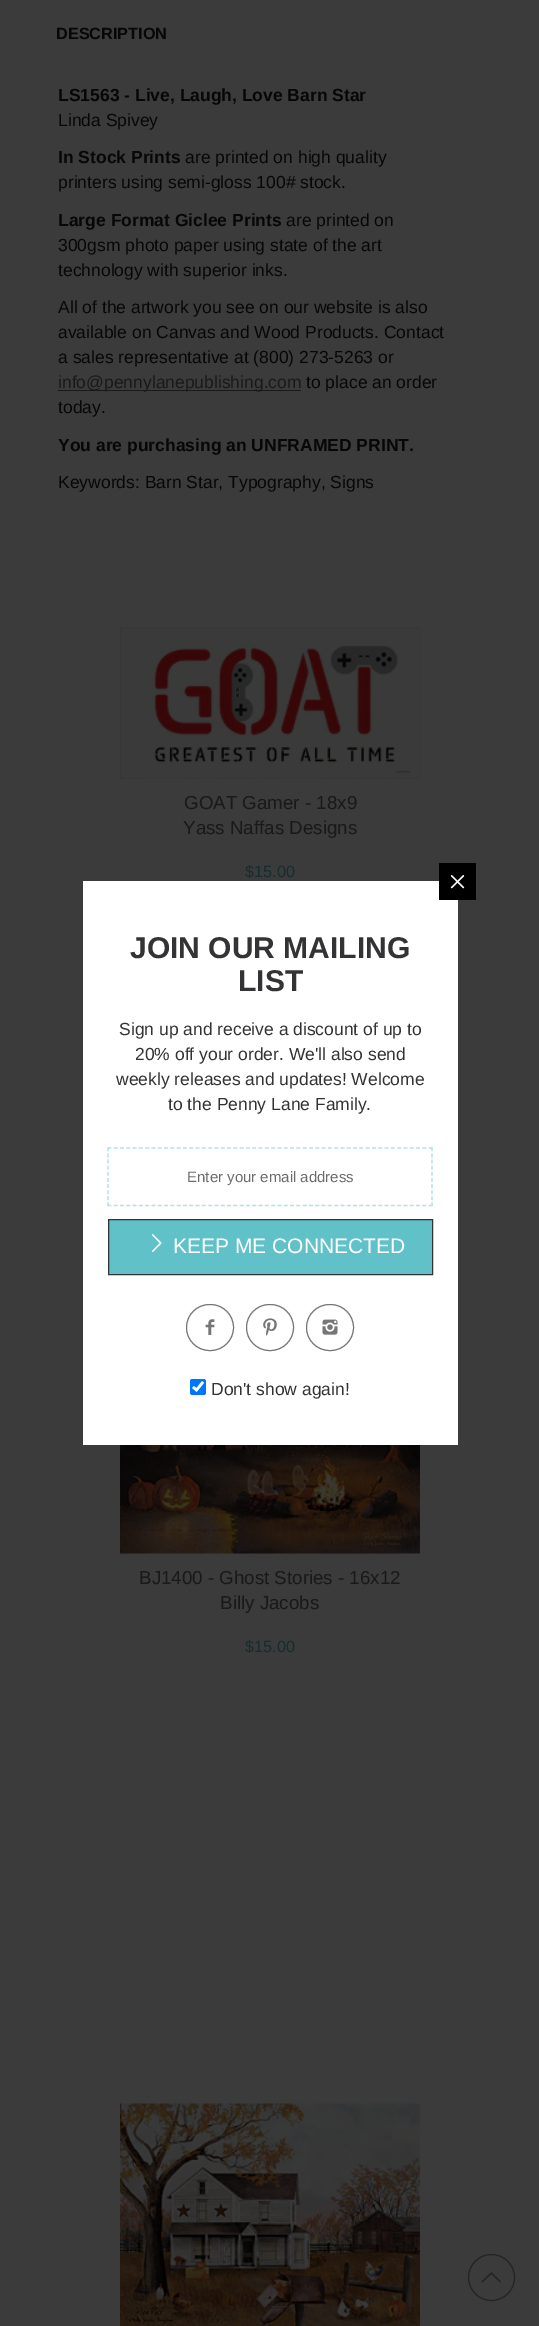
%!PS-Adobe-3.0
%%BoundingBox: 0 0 539 2326
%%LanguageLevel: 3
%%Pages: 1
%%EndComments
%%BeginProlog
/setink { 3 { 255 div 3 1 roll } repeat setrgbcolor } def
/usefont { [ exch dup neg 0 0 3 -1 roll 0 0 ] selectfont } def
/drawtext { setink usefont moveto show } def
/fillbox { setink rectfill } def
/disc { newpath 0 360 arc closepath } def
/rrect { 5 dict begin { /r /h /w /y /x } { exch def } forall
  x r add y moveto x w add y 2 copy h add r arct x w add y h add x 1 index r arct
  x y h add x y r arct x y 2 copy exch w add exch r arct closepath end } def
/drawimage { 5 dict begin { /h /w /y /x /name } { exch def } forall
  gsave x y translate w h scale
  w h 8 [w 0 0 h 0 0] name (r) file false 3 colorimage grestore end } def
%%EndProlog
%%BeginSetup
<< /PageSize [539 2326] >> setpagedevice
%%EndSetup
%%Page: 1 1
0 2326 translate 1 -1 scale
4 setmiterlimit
0 0 539 2326 59 59 59 fillbox
(DESCRIPTION) 56 39 /LiberationSans-Bold 16.25 7 7 7 drawtext
(LS1563 - Live, Laugh, Love Barn Star) 58 101 /LiberationSans-Bold 17.5 7 7 7 drawtext
(Linda Spivey) 58 126 /LiberationSans-Regular 17.5 7 7 7 drawtext
(In Stock Prints) 58 163 /LiberationSans-Bold 17.5 7 7 7 drawtext
(are printed on high quality) 185 163 /LiberationSans-Regular 17.5 7 7 7 drawtext
(printers using semi-gloss 100# stock.) 58 188 /LiberationSans-Regular 17.5 7 7 7 drawtext
(Large Format Giclee Prints) 58 226 /LiberationSans-Bold 17.5 7 7 7 drawtext
(are printed on) 286 226 /LiberationSans-Regular 17.5 7 7 7 drawtext
(300gsm photo paper using state of the art) 58 251 /LiberationSans-Regular 17.5 7 7 7 drawtext
(technology with superior inks.) 58 276 /LiberationSans-Regular 17.5 7 7 7 drawtext
(All of the artwork you see on our website is also) 58 313 /LiberationSans-Regular 17.5 7 7 7 drawtext
(available on Canvas and Wood Products. Contact) 58 338 /LiberationSans-Regular 17.5 7 7 7 drawtext
(a sales representative at \(800\) 273-5263 or) 58 363 /LiberationSans-Regular 17.5 7 7 7 drawtext
58 390 243 1 25 25 25 fillbox
(info@pennylanepublishing.com) 58 388 /LiberationSans-Regular 17.5 25 25 25 drawtext
(to place an order) 306 388 /LiberationSans-Regular 17.5 7 7 7 drawtext
(today.) 58 413 /LiberationSans-Regular 17.5 7 7 7 drawtext
(You are purchasing an UNFRAMED PRINT.) 58 451 /LiberationSans-Bold 17.5 7 7 7 drawtext
(Keywords: Barn Star, Typography, Signs) 58 488 /LiberationSans-Regular 17.5 7 7 7 drawtext
(assets/img1.rgb) 120 627 300 152 drawimage
(GOAT Gamer - 18x9) 184 809 /LiberationSans-Regular 18.75 25 25 25 drawtext
(Yass Naffas Designs) 183 834 /LiberationSans-Regular 18.75 25 25 25 drawtext
($15.00) 245 877 /LiberationSans-Regular 16.25 22 44 46 drawtext
(assets/img2.rgb) 120 1445 300 109 drawimage
(BJ1400 - Ghost Stories - 16x12) 139 1584 /LiberationSans-Regular 18.75 25 25 25 drawtext
(Billy Jacobs) 220 1609 /LiberationSans-Regular 18.75 25 25 25 drawtext
($15.00) 245 1652 /LiberationSans-Regular 16.25 22 44 46 drawtext
(assets/img3.rgb) 120 2103 300 223 drawimage
35 35 35 setink
491.5 2277.5 23 disc stroke
(assets/img4.rgb) 481 2272 20 11 drawimage
83 881 375 564 255 255 255 fillbox
439 863 37 37 0 0 0 fillbox
(assets/img5.rgb) 450 875 15 14 drawimage
(JOIN OUR MAILING) 130 958 /LiberationSans-Bold 30 51 50 52 drawtext
(LIST) 238 991 /LiberationSans-Bold 30 51 50 52 drawtext
(Sign up and receive a discount of up to) 119 1035 /LiberationSans-Regular 17.5 51 50 52 drawtext
(20% off your order. We'll also send) 135 1060 /LiberationSans-Regular 17.5 51 50 52 drawtext
(weekly releases and updates! Welcome) 116 1085 /LiberationSans-Regular 17.5 51 50 52 drawtext
(to the Penny Lane Family.) 168 1110 /LiberationSans-Regular 17.5 51 50 52 drawtext
182 224 227 setink
1.2 setlinewidth
[3.75 2.55] 0 setdash
107.5 1148 moveto 432.5 1148 lineto stroke
[3.75 2.36] 0 setdash
432 1147.5 moveto 432 1206 lineto stroke
[3.75 2.55] 0 setdash
107.5 1205.5 moveto 432.5 1205.5 lineto stroke
[3.75 2.36] 0 setdash
108 1147.5 moveto 108 1206 lineto stroke
(Enter your email address) 187 1182 /LiberationSans-Regular 15 107 108 110 drawtext
97 193 201 setink
108.5 1219.5 moveto 432.5 1219.5 lineto 432.5 1274.5 lineto 108.5 1274.5 lineto closepath gsave fill grestore
51 50 52 setink
1 setlinewidth
[] 0 setdash
stroke
(assets/img6.rgb) 152 1234 10 18 drawimage
(KEEP ME CONNECTED) 173 1253 /LiberationSans-Regular 21 255 255 255 drawtext
118 118 118 setink
186.5 1304.5 47 46 23 rrect stroke
(assets/img7.rgb) 205 1319 10 16 drawimage
246.5 1304.5 47 46 23 rrect stroke
(assets/img8.rgb) 263 1318 14 18 drawimage
306.5 1304.5 47 46 23 rrect stroke
(assets/img9.rgb) 322 1319 16 16 drawimage
0 117 255 setink
190 1379 16 16 2.5 rrect fill
255 255 255 setink
2.6 setlinewidth
193 1387 moveto 196.5 1390 lineto 203 1382 lineto stroke
(Don't show again!) 211 1395 /LiberationSans-Regular 17.5 51 50 52 drawtext
showpage
%%EOF
